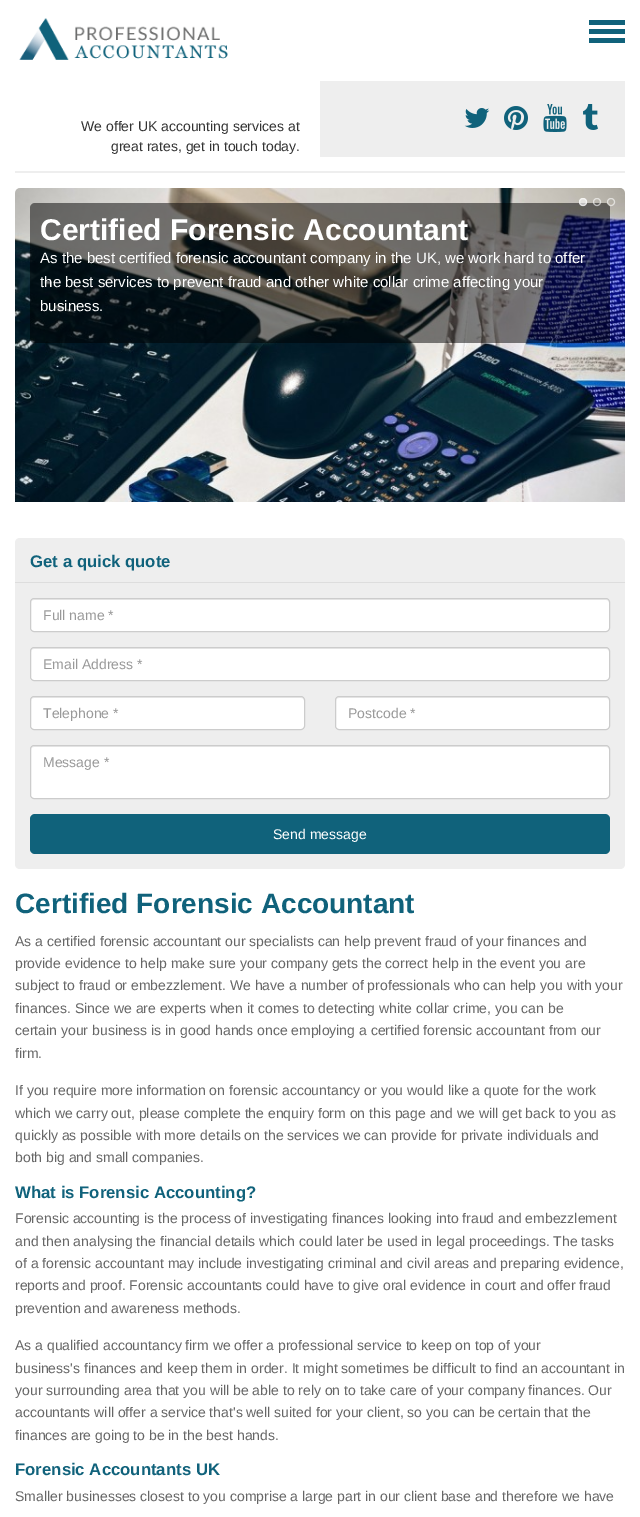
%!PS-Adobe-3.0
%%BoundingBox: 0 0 640 1517
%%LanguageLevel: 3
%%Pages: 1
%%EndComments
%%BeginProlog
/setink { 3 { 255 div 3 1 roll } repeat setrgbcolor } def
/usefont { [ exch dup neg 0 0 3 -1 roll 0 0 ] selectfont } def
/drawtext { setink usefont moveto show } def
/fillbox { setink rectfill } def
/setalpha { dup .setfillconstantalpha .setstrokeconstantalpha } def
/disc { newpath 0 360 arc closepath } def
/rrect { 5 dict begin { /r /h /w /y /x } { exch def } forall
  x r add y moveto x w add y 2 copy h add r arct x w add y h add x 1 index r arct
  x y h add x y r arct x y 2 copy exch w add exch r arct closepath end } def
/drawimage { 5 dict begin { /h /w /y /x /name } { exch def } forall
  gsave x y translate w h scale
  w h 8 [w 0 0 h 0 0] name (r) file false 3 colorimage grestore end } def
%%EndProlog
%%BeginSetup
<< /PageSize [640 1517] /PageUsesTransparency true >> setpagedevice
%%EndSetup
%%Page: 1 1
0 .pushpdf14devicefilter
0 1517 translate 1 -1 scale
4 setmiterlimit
0 0 640 1517 255 255 255 fillbox
(assets/img1.rgb) 19 18 209 42 drawimage
15 171 610 2 238 238 238 fillbox
589 20 36 5 16 98 123 fillbox
589 29 36 5 16 98 123 fillbox
589 38 36 5 16 98 123 fillbox
(We offer UK accounting services at) 81 131 /LiberationSans-Regular 14 51 51 51 drawtext
(great rates, get in touch today.) 111 151 /LiberationSans-Regular 14 51 51 51 drawtext
320 81 305 76 238 238 238 fillbox
(assets/img2.rgb) 464 108 26 20 drawimage
(assets/img3.rgb) 504 106 24 24 drawimage
(assets/img4.rgb) 543 104 24 28 drawimage
(assets/img5.rgb) 583 104 15 26 drawimage
(assets/img6.rgb) 15 188 610 314 drawimage
0.5 setalpha
0 0 0 setink
30 203 580 140 5 rrect fill
0.6 setalpha
255 255 255 setink
583 202 4 disc fill
583 202 3.5 disc stroke
597 202 3.5 disc stroke
611 202 3.5 disc stroke
1 setalpha
(Certified Forensic Accountant) 40 240 /LiberationSans-Bold 30 255 255 255 drawtext
(As the best certified forensic accountant company in the UK, we work hard to offer) 40 263 /LiberationSans-Regular 15 255 255 255 drawtext
(the best services to prevent fraud and other white collar crime affecting your) 40 287 /LiberationSans-Regular 15 255 255 255 drawtext
(business.) 40 311 /LiberationSans-Regular 15 255 255 255 drawtext
238 238 238 setink
20 538 moveto 620 538 lineto 623 538 625 540 625 543 curveto 625 583 lineto 15 583 lineto 15 543 lineto 15 540 17 538 20 538 curveto closepath fill
15 582 610 1 221 221 221 fillbox
(Get a quick quote) 30 567 /LiberationSans-Bold 16.75 16 98 123 drawtext
238 238 238 setink
15 583 moveto 625 583 lineto 625 864 lineto 625 867 623 869 620 869 curveto 20 869 lineto 17 869 15 867 15 864 curveto closepath fill
255 255 255 setink
30 598 580 34 4 rrect fill
236 236 236 setink
34 600 moveto 606 600 lineto 608 600 609 601 609 603 curveto 609 602 lineto 609 600 608 599 606 599 curveto 34 599 lineto 32 599 31 600 31 602 curveto 31 603 lineto 31 601 32 600 34 600 curveto closepath fill
204 204 204 setink
30.5 598.5 579 33 3.5 rrect stroke
(Full name *) 43 620 /LiberationSans-Regular 14 153 153 153 drawtext
255 255 255 setink
30 647 580 34 4 rrect fill
236 236 236 setink
34 649 moveto 606 649 lineto 608 649 609 650 609 652 curveto 609 651 lineto 609 649 608 648 606 648 curveto 34 648 lineto 32 648 31 649 31 651 curveto 31 652 lineto 31 650 32 649 34 649 curveto closepath fill
204 204 204 setink
30.5 647.5 579 33 3.5 rrect stroke
(Email Address *) 43 669 /LiberationSans-Regular 14 153 153 153 drawtext
255 255 255 setink
30 696 275 34 4 rrect fill
236 236 236 setink
34 698 moveto 301 698 lineto 303 698 304 699 304 701 curveto 304 700 lineto 304 698 303 697 301 697 curveto 34 697 lineto 32 697 31 698 31 700 curveto 31 701 lineto 31 699 32 698 34 698 curveto closepath fill
204 204 204 setink
30.5 696.5 274 33 3.5 rrect stroke
(Telephone *) 43 718 /LiberationSans-Regular 14 153 153 153 drawtext
255 255 255 setink
335 696 275 34 4 rrect fill
236 236 236 setink
339 698 moveto 606 698 lineto 608 698 609 699 609 701 curveto 609 700 lineto 609 698 608 697 606 697 curveto 339 697 lineto 337 697 336 698 336 700 curveto 336 701 lineto 336 699 337 698 339 698 curveto closepath fill
204 204 204 setink
335.5 696.5 274 33 3.5 rrect stroke
(Postcode *) 348 718 /LiberationSans-Regular 14 153 153 153 drawtext
255 255 255 setink
30 745 580 54 4 rrect fill
236 236 236 setink
34 747 moveto 606 747 lineto 608 747 609 748 609 750 curveto 609 749 lineto 609 747 608 746 606 746 curveto 34 746 lineto 32 746 31 747 31 749 curveto 31 750 lineto 31 748 32 747 34 747 curveto closepath fill
204 204 204 setink
30.5 745.5 579 53 3.5 rrect stroke
(Message *) 43 767 /LiberationSans-Regular 14 153 153 153 drawtext
16 98 123 setink
30 814 580 40 5 rrect fill
(Send message) 273 839 /LiberationSans-Regular 14 255 255 255 drawtext
(Certified Forensic Accountant) 15 913 /LiberationSans-Bold 28 16 98 123 drawtext
(As a certified forensic accountant our specialists can help prevent fraud of your finances and) 15 946 /LiberationSans-Regular 14 102 102 102 drawtext
(provide evidence to help make sure your company gets the correct help in the event you are) 15 968 /LiberationSans-Regular 14 102 102 102 drawtext
(subject to fraud or embezzlement. We have a number of professionals who can help you with your) 15 990 /LiberationSans-Regular 14 102 102 102 drawtext
(finances. Since we are experts when it comes to detecting white collar crime, you can be) 15 1013 /LiberationSans-Regular 14 102 102 102 drawtext
(certain your business is in good hands once employing a certified forensic accountant from our) 15 1035 /LiberationSans-Regular 14 102 102 102 drawtext
(firm.) 15 1058 /LiberationSans-Regular 14 102 102 102 drawtext
(If you require more information on forensic accountancy or you would like a quote for the work) 15 1095 /LiberationSans-Regular 14 102 102 102 drawtext
(which we carry out, please complete the enquiry form on this page and we will get back to you as) 15 1118 /LiberationSans-Regular 14 102 102 102 drawtext
(quickly as possible with more details on the services we can provide for private individuals and) 15 1140 /LiberationSans-Regular 14 102 102 102 drawtext
(both big and small companies.) 15 1162 /LiberationSans-Regular 14 102 102 102 drawtext
(What is Forensic Accounting?) 15 1198 /LiberationSans-Bold 16.75 16 98 123 drawtext
(Forensic accounting is the process of investigating finances looking into fraud and embezzlement) 15 1223 /LiberationSans-Regular 14 102 102 102 drawtext
(and then analysing the financial details which could later be used in legal proceedings. The tasks) 15 1246 /LiberationSans-Regular 14 102 102 102 drawtext
(of a forensic accountant may include investigating criminal and civil areas and preparing evidence,) 15 1268 /LiberationSans-Regular 14 102 102 102 drawtext
(reports and proof. Forensic accountants could have to give oral evidence in court and offer fraud) 15 1290 /LiberationSans-Regular 14 102 102 102 drawtext
(prevention and awareness methods.) 15 1313 /LiberationSans-Regular 14 102 102 102 drawtext
(As a qualified accountancy firm we offer a professional service to keep on top of your) 15 1350 /LiberationSans-Regular 14 102 102 102 drawtext
(business's finances and keep them in order. It might sometimes be difficult to find an accountant in) 15 1373 /LiberationSans-Regular 14 102 102 102 drawtext
(your surrounding area that you will be able to rely on to take care of your company finances. Our) 15 1395 /LiberationSans-Regular 14 102 102 102 drawtext
(accountants will offer a service that's well suited for your client, so you can be certain that the) 15 1417 /LiberationSans-Regular 14 102 102 102 drawtext
(finances are going to be in the best hands.) 15 1440 /LiberationSans-Regular 14 102 102 102 drawtext
(Forensic Accountants UK) 15 1475 /LiberationSans-Bold 16.75 16 98 123 drawtext
(Smaller businesses closest to you comprise a large part in our client base and therefore we have) 15 1501 /LiberationSans-Regular 14 102 102 102 drawtext
.poppdf14devicefilter showpage
%%EOF
